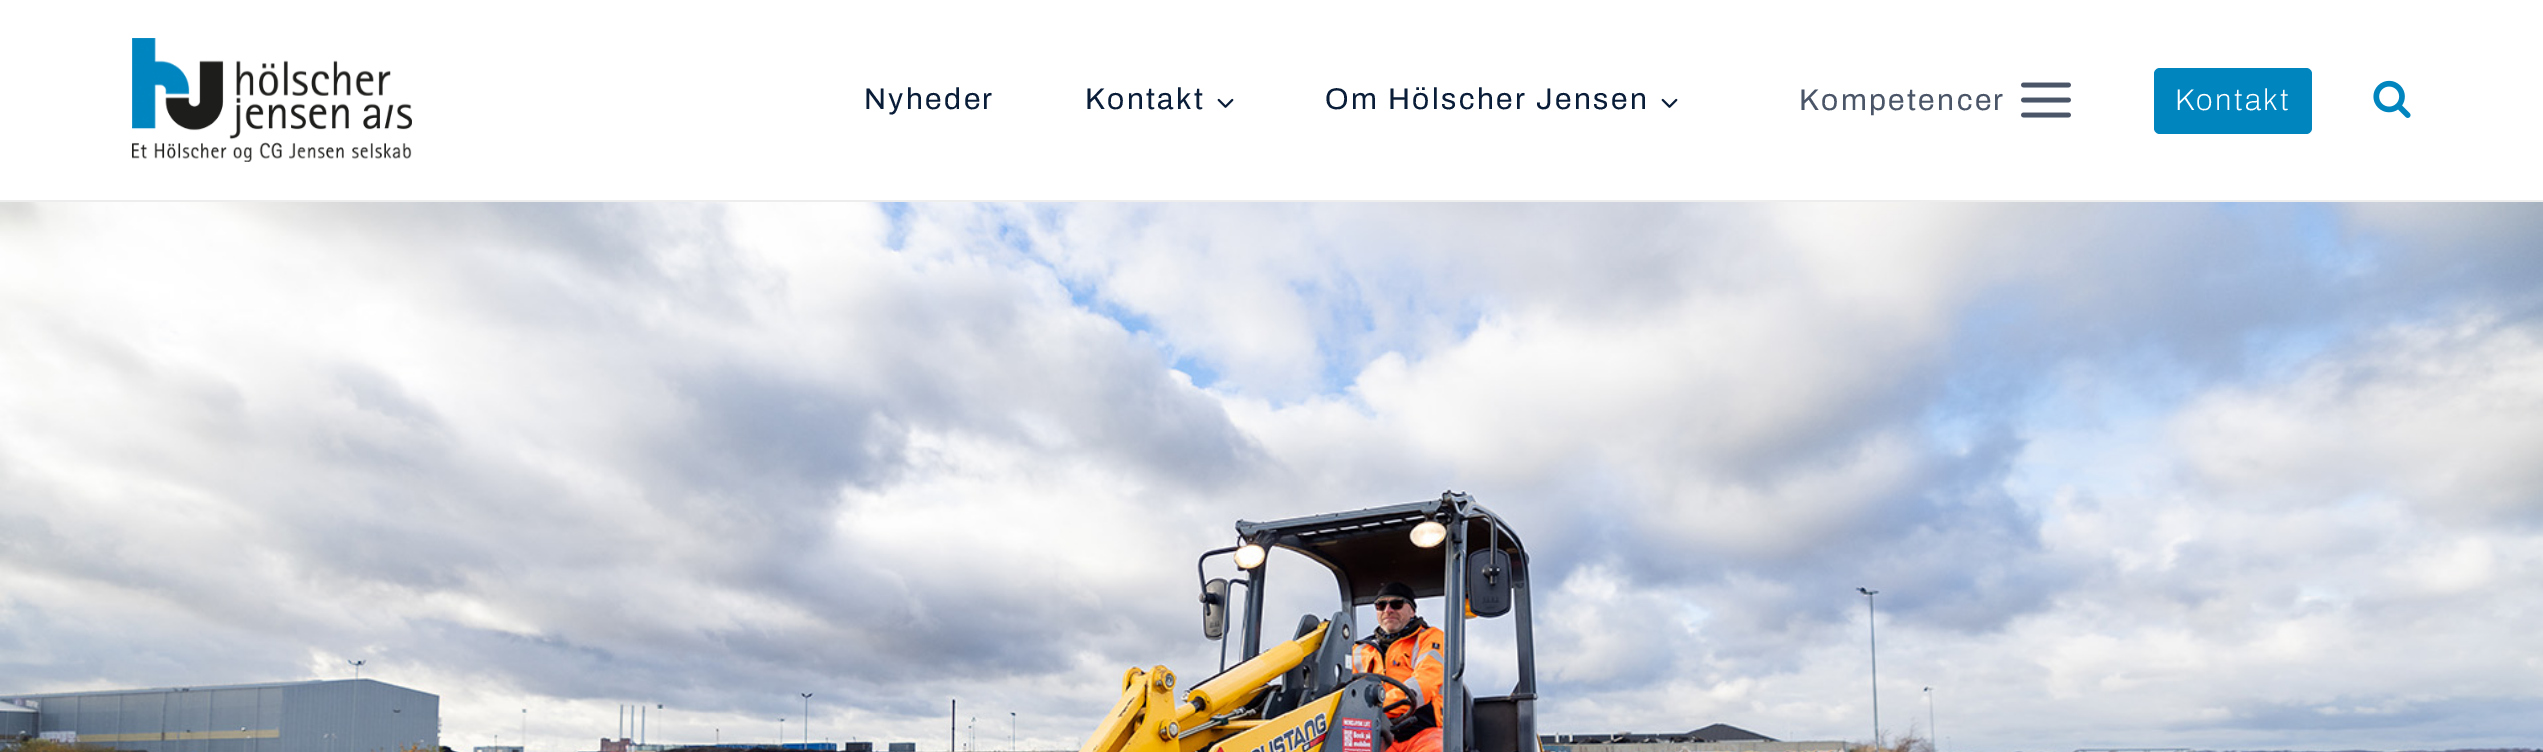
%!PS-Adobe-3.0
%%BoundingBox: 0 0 2543 752
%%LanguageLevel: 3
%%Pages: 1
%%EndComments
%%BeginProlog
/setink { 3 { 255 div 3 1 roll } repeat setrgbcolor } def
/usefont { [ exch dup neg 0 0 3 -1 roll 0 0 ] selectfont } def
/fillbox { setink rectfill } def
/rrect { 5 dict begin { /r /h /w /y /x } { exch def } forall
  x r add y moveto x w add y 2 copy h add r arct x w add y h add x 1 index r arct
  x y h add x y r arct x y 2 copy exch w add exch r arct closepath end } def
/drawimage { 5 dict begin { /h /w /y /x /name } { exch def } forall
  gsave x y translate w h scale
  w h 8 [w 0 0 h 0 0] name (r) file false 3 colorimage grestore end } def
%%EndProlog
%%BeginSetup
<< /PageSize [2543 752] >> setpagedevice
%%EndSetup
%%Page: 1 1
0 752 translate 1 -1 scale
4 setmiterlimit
0 0 2543 752 255 255 255 fillbox
0 200 2543 2 237 237 237 fillbox
(assets/img1.rgb) 132 38 280 124 drawimage
/Archivo-Regular 30 usefont
10 29 56 setink
864 109 moveto 2.4 0 (Nyheder) ashow
1085 109 moveto 2.4 0 (Kontakt) ashow
(assets/img2.rgb) 1217 98 17 10 drawimage
1325 109 moveto 2.4 0 (Om Hölscher Jensen) ashow
(assets/img2.rgb) 1661 98 17 10 drawimage
74 85 104 setink
1799 110 moveto 2.4 0 (Kompetencer) ashow
(assets/img3.rgb) 2021 82 50 36 drawimage
0 133 191 setink
2154 68 158 66 6 rrect fill
/Archivo-ExtraLight 30 usefont
255 255 255 setink
2175 110 moveto 2.4 0 (Kontakt) ashow
(assets/img4.rgb) 2373 80 38 38 drawimage
(assets/img5.rgb) 0 202 2543 550 drawimage
showpage
%%EOF
